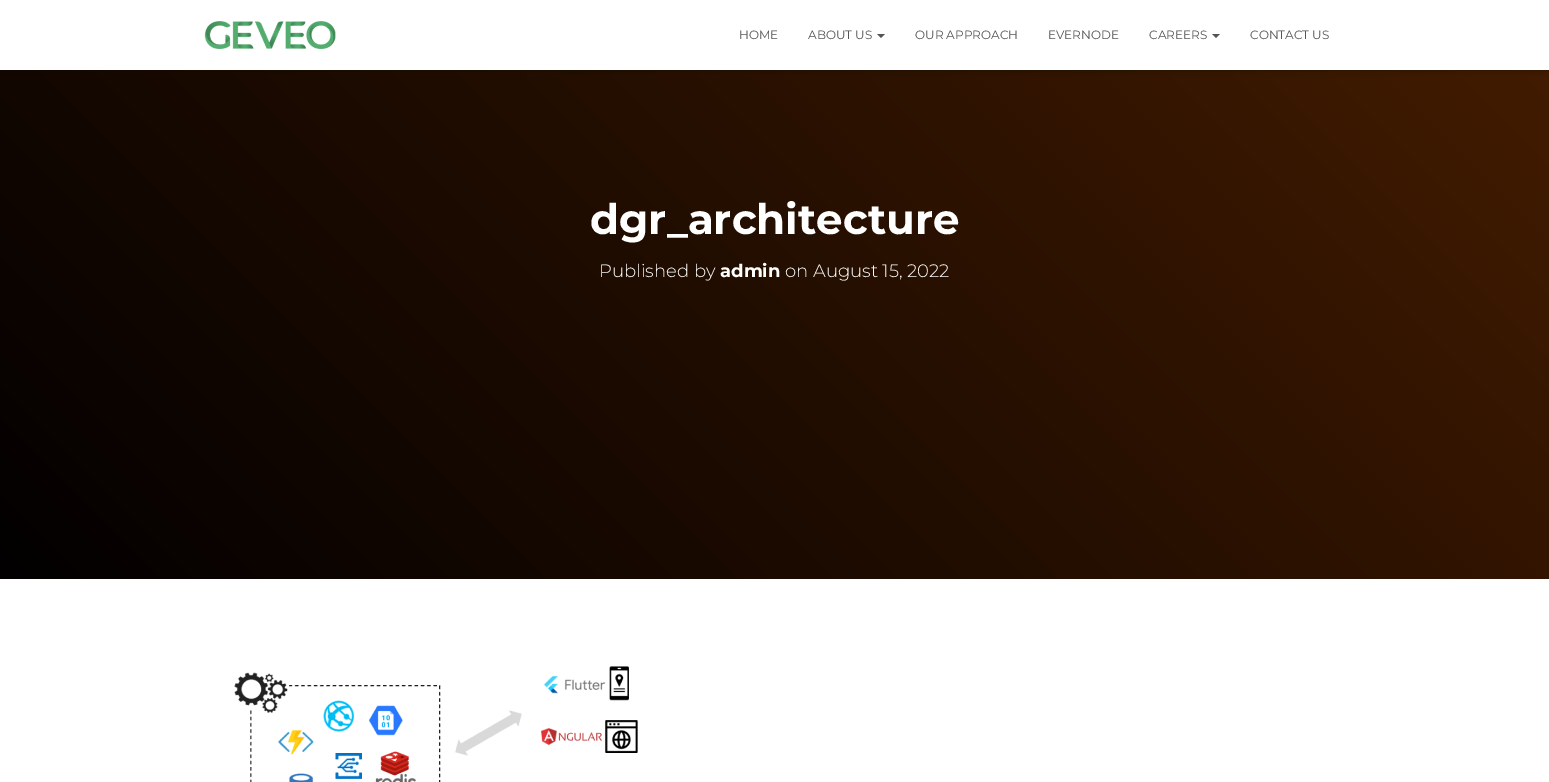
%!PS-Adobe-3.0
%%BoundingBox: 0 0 1549 782
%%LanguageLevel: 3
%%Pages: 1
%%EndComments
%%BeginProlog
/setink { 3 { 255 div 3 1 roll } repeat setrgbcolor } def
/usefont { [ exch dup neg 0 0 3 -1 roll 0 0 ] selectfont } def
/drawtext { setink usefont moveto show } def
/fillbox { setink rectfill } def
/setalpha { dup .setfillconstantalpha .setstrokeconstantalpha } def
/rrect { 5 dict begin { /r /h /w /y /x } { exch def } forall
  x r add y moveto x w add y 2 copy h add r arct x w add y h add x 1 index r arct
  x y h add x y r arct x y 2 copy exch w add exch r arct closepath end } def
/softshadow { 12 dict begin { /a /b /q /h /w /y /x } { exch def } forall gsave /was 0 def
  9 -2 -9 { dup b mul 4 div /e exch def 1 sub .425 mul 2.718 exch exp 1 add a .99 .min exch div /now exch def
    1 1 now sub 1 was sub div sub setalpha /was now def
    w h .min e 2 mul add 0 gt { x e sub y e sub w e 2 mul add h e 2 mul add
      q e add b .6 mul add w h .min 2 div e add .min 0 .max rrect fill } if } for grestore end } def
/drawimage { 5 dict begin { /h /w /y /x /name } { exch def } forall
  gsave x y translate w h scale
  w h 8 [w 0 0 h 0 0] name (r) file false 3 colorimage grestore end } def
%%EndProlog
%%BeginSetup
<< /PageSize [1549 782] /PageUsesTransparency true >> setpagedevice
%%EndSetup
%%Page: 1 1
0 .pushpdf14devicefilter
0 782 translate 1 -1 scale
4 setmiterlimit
0 0 1549 782 255 255 255 fillbox
gsave 0 70 moveto 1549 70 lineto 1549 579 lineto 0 579 lineto closepath clip newpath
<< /ShadingType 2 /ColorSpace /DeviceRGB /Coords [243 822 1307 -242] /Extend [true true] /Function << /FunctionType 2 /Domain [0 1] /C0 [0.008 0 0] /C1 [0.267 0.11 0] /N 1 >> >> shfill grestore
0 0 0 setink
2 6 1545 66 0 2.5 0.1 softshadow
0 1 1549 70 0 5 0.12 softshadow
6 7 1537 58 0 5 0.42 softshadow
0 0 1549 70 255 255 255 fillbox
(assets/img1.rgb) 204 21 132 28 drawimage
(HOME) 739 39 /Montserrat-Regular 12 85 85 85 drawtext
(ABOUT US) 808 39 /Montserrat-Regular 12 85 85 85 drawtext
877 34 moveto 885 34 lineto 881 38 lineto closepath fill
(OUR APPROACH) 915 39 /Montserrat-Regular 12 85 85 85 drawtext
(EVERNODE) 1048 39 /Montserrat-Regular 12 85 85 85 drawtext
(CAREERS) 1149 39 /Montserrat-Regular 12 85 85 85 drawtext
1212 34 moveto 1220 34 lineto 1216 38 lineto closepath fill
(CONTACT US) 1250 39 /Montserrat-Regular 12 85 85 85 drawtext
(dgr_architecture) 590 234 /Montserrat-Bold 42 255 255 255 drawtext
(Published by) 599 277 /Montserrat-Light 18 255 255 255 drawtext
(admin) 720 277 /Montserrat-Bold 18 255 255 255 drawtext
(on August 15, 2022) 785 277 /Montserrat-Light 18 255 255 255 drawtext
(assets/img2.rgb) 234 666 404 116 drawimage
.poppdf14devicefilter showpage
%%EOF
